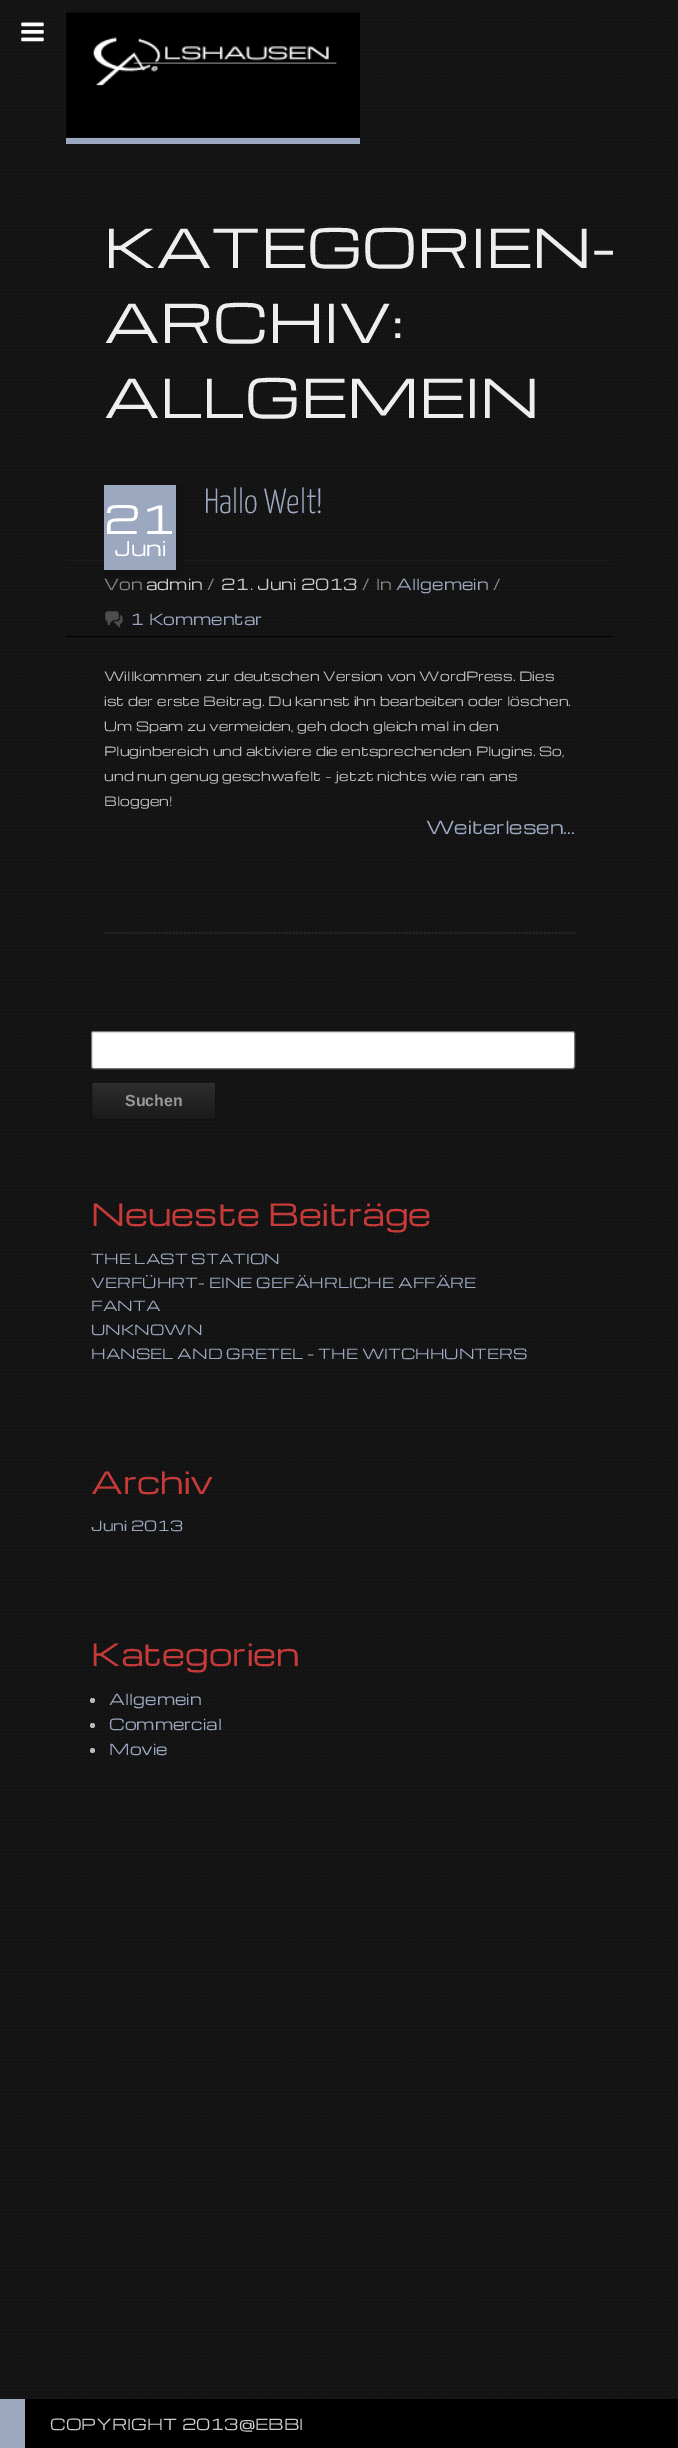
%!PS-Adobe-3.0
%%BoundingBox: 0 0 678 2448
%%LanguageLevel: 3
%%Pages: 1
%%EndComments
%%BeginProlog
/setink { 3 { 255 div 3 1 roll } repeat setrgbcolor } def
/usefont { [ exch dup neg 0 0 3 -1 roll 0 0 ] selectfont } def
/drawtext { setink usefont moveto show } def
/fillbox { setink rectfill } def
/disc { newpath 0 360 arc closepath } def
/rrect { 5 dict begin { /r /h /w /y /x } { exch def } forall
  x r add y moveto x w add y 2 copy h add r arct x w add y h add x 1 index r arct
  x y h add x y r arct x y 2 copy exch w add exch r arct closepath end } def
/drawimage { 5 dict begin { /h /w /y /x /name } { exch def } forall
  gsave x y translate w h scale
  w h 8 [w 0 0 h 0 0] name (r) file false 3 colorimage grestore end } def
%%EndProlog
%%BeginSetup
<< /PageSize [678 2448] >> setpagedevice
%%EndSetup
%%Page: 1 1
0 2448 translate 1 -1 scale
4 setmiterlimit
0 0 678 2448 26 26 26 fillbox
(assets/img1.rgb) 0 0 678 2399 drawimage
(assets/img2.rgb) 21 22 23 20 drawimage
66 138 294 6 155 168 191 fillbox
(assets/img3.rgb) 66 12 294 126 drawimage
gsave
66 169 547 279 rectclip
(KATEGORIEN-) 104 268 /Michroma-Regular 52.5 238 238 238 drawtext
grestore
(ARCHIV:) 104 343 /Michroma-Regular 52.5 238 238 238 drawtext
(ALLGEMEIN) 104 418 /Michroma-Regular 52.5 238 238 238 drawtext
(Hallo Welt!) 204 513 /YanoneKaffeesatz-Light 35 155 168 191 drawtext
66 560 547 1 26 26 26 fillbox
104 485 72 85 155 168 191 fillbox
176 485 7 91 17 17 17 fillbox
104 570 79 6 17 17 17 fillbox
(21) 104 534 /Michroma-Regular 38 255 255 255 drawtext
(Juni) 114 556 /Michroma-Regular 20 255 255 255 drawtext
66 636 547 1 0 0 0 fillbox
(Von) 104 590 /Michroma-Regular 15 134 134 134 drawtext
(admin) 146 590 /Michroma-Regular 15 204 204 204 drawtext
(/) 207 590 /Michroma-Regular 15 134 134 134 drawtext
(21. Juni 2013) 221 590 /Michroma-Regular 15 204 204 204 drawtext
(/) 362 590 /Michroma-Regular 15 134 134 134 drawtext
(In) 376 590 /Michroma-Regular 15 134 134 134 drawtext
(Allgemein) 396 590 /Michroma-Regular 15 155 168 191 drawtext
(/) 493 590 /Michroma-Regular 15 134 134 134 drawtext
(assets/img4.rgb) 105 611 18 17 drawimage
(1 Kommentar) 130 625 /Michroma-Regular 15 155 168 191 drawtext
(Willkommen zur deutschen Version von WordPress. Dies) 104 681 /Michroma-Regular 12.5 187 187 187 drawtext
(ist der erste Beitrag. Du kannst ihn bearbeiten oder löschen.) 104 706 /Michroma-Regular 12.5 187 187 187 drawtext
(Um Spam zu vermeiden, geh doch gleich mal in den) 104 731 /Michroma-Regular 12.5 187 187 187 drawtext
(Pluginbereich und aktiviere die entsprechenden Plugins. So,) 104 756 /Michroma-Regular 12.5 187 187 187 drawtext
(und nun genug geschwafelt – jetzt nichts wie ran ans) 104 781 /Michroma-Regular 12.5 187 187 187 drawtext
(Bloggen!) 104 806 /Michroma-Regular 12.5 187 187 187 drawtext
(Weiterlesen...) 426 834 /Michroma-Regular 17.5 155 168 191 drawtext
51 51 51 setink
1.2 setlinewidth
[1.25 1.25] 0 setdash
104 933 moveto 575 933 lineto stroke
255 255 255 setink
91.5 1031.5 483 37 2 rrect gsave fill grestore
118 118 118 setink
1 setlinewidth
[] 0 setdash
stroke
gsave 91 1082 moveto 216 1082 lineto 216 1083 lineto 91 1083 lineto closepath clip newpath
<< /ShadingType 2 /ColorSpace /DeviceRGB /Coords [93 1046 93 1083] /Extend [true true] /Function << /FunctionType 2 /Domain [0 1] /C0 [0.18 0.18 0.18] /C1 [0.102 0.102 0.102] /N 1 >> >> shfill grestore
gsave 92 1083 moveto 215 1083 lineto 215 1119 lineto 92 1119 lineto closepath clip newpath
<< /ShadingType 2 /ColorSpace /DeviceRGB /Coords [93 1083 93 1119] /Extend [true true] /Function << /FunctionType 2 /Domain [0 1] /C0 [0.18 0.18 0.18] /C1 [0.102 0.102 0.102] /N 1 >> >> shfill grestore
17 17 17 setink
91.5 1081.5 124 38 rectstroke
(Suchen) 125 1106 /LiberationSans-Bold 16 153 153 153 drawtext
(Neueste Beiträge) 91 1226 /Michroma-Regular 30 199 58 58 drawtext
(THE LAST STATION) 91 1264 /Michroma-Regular 13.75 155 168 191 drawtext
(VERFÜHRT- EINE GEFÄHRLICHE AFFÄRE) 91 1288 /Michroma-Regular 13.75 155 168 191 drawtext
(FANTA) 91 1311 /Michroma-Regular 13.75 155 168 191 drawtext
(UNKNOWN) 91 1335 /Michroma-Regular 13.75 155 168 191 drawtext
(HANSEL AND GRETEL – THE WITCHHUNTERS) 91 1359 /Michroma-Regular 13.75 155 168 191 drawtext
(Archiv) 91 1494 /Michroma-Regular 30 199 58 58 drawtext
(Juni 2013) 91 1531 /Michroma-Regular 13.75 155 168 191 drawtext
(Kategorien) 91 1666 /Michroma-Regular 30 199 58 58 drawtext
187 187 187 setink
92.5 1700.5 2.5 disc fill
(Allgemein) 109 1705 /Michroma-Regular 15 155 168 191 drawtext
187 187 187 setink
92.5 1725.5 2.5 disc fill
(Commercial) 109 1730 /Michroma-Regular 15 155 168 191 drawtext
187 187 187 setink
92.5 1750.5 2.5 disc fill
(Movie) 109 1755 /Michroma-Regular 15 155 168 191 drawtext
25 2399 653 49 0 0 0 fillbox
0 2399 25 49 155 168 191 fillbox
(COPYRIGHT 2013@EBBI) 50 2430 /Michroma-Regular 15 204 204 204 drawtext
showpage
%%EOF
